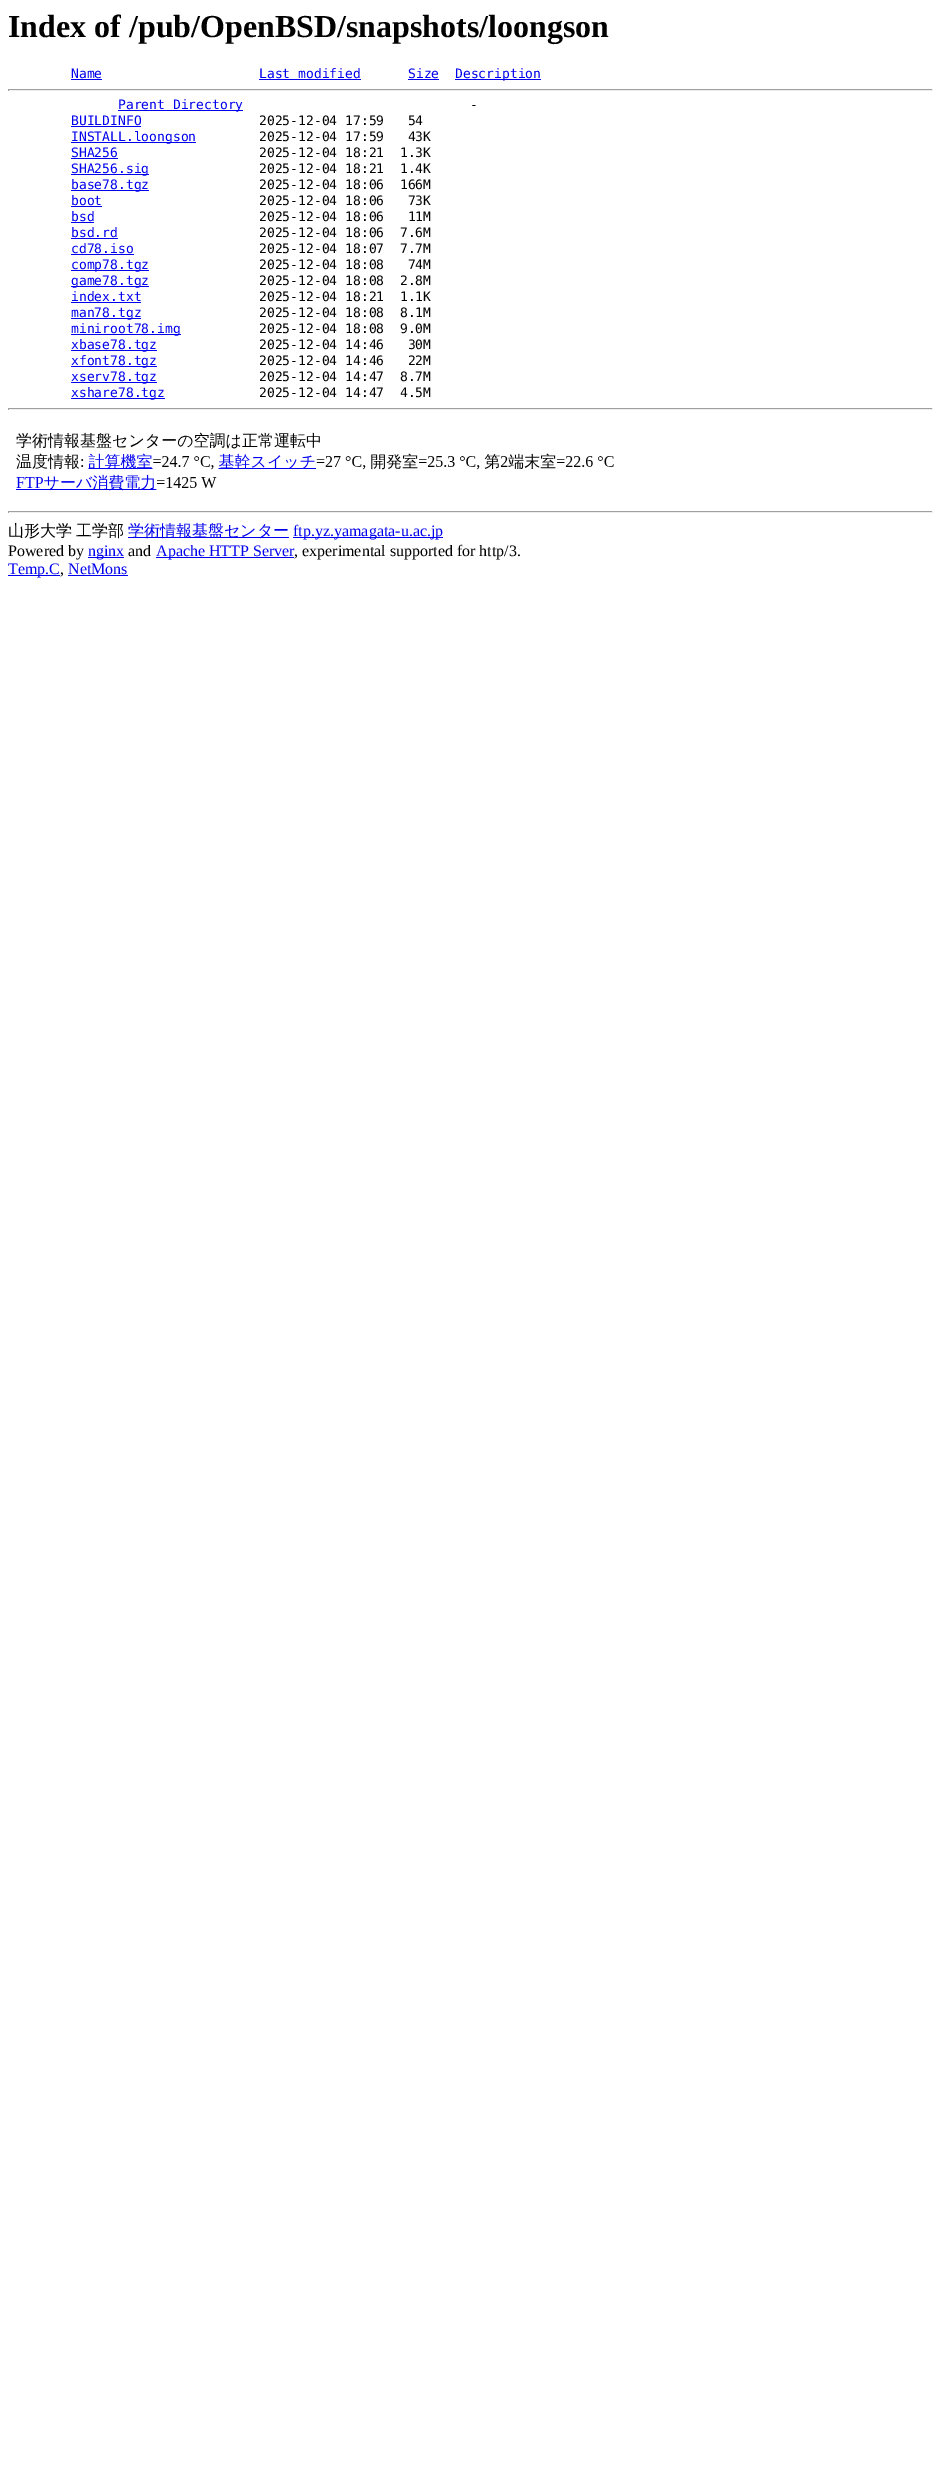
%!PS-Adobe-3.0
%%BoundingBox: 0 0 941 2484
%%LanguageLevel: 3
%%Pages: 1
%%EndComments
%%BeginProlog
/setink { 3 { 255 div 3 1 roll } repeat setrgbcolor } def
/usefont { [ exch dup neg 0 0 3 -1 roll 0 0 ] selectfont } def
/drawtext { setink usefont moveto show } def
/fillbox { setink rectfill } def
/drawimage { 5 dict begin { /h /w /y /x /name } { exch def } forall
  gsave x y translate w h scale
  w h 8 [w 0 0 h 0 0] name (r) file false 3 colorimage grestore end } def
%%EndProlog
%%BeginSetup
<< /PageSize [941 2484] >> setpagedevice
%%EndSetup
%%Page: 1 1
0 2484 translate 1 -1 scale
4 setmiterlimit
0 0 941 2484 255 255 255 fillbox
(Index of /pub/OpenBSD/snapshots/loongson) 8 37 /LiberationSerif-Bold 32 0 0 0 drawtext
(Name) 71 78 /DejaVuSansMono-Regular 13 0 0 238 drawtext
71 79 31 1 0 0 238 fillbox
(Last modified) 259 78 /DejaVuSansMono-Regular 13 0 0 238 drawtext
259 79 102 1 0 0 238 fillbox
(Size) 408 78 /DejaVuSansMono-Regular 13 0 0 238 drawtext
408 79 31 1 0 0 238 fillbox
455 79 86 1 0 0 238 fillbox
(Description) 455 78 /DejaVuSansMono-Regular 13 0 0 238 drawtext
8 89 925 1 159 159 159 fillbox
932 89 1 2 238 238 238 fillbox
8 90 925 1 238 238 238 fillbox
8 89 1 2 159 159 159 fillbox
118 110 125 1 0 0 238 fillbox
(Parent Directory) 118 109 /DejaVuSansMono-Regular 13 0 0 238 drawtext
(-) 470 109 /DejaVuSansMono-Regular 13 0 0 0 drawtext
(BUILDINFO) 71 125 /DejaVuSansMono-Regular 13 0 0 238 drawtext
71 126 70 1 0 0 238 fillbox
(2025-12-04 17:59   54) 259 125 /DejaVuSansMono-Regular 13 0 0 0 drawtext
71 142 125 1 0 0 238 fillbox
(INSTALL.loongson) 71 141 /DejaVuSansMono-Regular 13 0 0 238 drawtext
(2025-12-04 17:59   43K) 259 141 /DejaVuSansMono-Regular 13 0 0 0 drawtext
(SHA256) 71 157 /DejaVuSansMono-Regular 13 0 0 238 drawtext
71 158 47 1 0 0 238 fillbox
(2025-12-04 18:21  1.3K) 259 157 /DejaVuSansMono-Regular 13 0 0 0 drawtext
71 174 78 1 0 0 238 fillbox
(SHA256.sig) 71 173 /DejaVuSansMono-Regular 13 0 0 238 drawtext
(2025-12-04 18:21  1.4K) 259 173 /DejaVuSansMono-Regular 13 0 0 0 drawtext
71 190 78 1 0 0 238 fillbox
(base78.tgz) 71 189 /DejaVuSansMono-Regular 13 0 0 238 drawtext
(2025-12-04 18:06  166M) 259 189 /DejaVuSansMono-Regular 13 0 0 0 drawtext
(boot) 71 205 /DejaVuSansMono-Regular 13 0 0 238 drawtext
71 206 31 1 0 0 238 fillbox
(2025-12-04 18:06   73K) 259 205 /DejaVuSansMono-Regular 13 0 0 0 drawtext
(bsd) 71 221 /DejaVuSansMono-Regular 13 0 0 238 drawtext
71 222 23 1 0 0 238 fillbox
(2025-12-04 18:06   11M) 259 221 /DejaVuSansMono-Regular 13 0 0 0 drawtext
(bsd.rd) 71 237 /DejaVuSansMono-Regular 13 0 0 238 drawtext
71 238 47 1 0 0 238 fillbox
(2025-12-04 18:06  7.6M) 259 237 /DejaVuSansMono-Regular 13 0 0 0 drawtext
(cd78.iso) 71 253 /DejaVuSansMono-Regular 13 0 0 238 drawtext
71 254 63 1 0 0 238 fillbox
(2025-12-04 18:07  7.7M) 259 253 /DejaVuSansMono-Regular 13 0 0 0 drawtext
71 270 78 1 0 0 238 fillbox
(comp78.tgz) 71 269 /DejaVuSansMono-Regular 13 0 0 238 drawtext
(2025-12-04 18:08   74M) 259 269 /DejaVuSansMono-Regular 13 0 0 0 drawtext
71 286 78 1 0 0 238 fillbox
(game78.tgz) 71 285 /DejaVuSansMono-Regular 13 0 0 238 drawtext
(2025-12-04 18:08  2.8M) 259 285 /DejaVuSansMono-Regular 13 0 0 0 drawtext
(index.txt) 71 301 /DejaVuSansMono-Regular 13 0 0 238 drawtext
71 302 70 1 0 0 238 fillbox
(2025-12-04 18:21  1.1K) 259 301 /DejaVuSansMono-Regular 13 0 0 0 drawtext
71 318 70 1 0 0 238 fillbox
(man78.tgz) 71 317 /DejaVuSansMono-Regular 13 0 0 238 drawtext
(2025-12-04 18:08  8.1M) 259 317 /DejaVuSansMono-Regular 13 0 0 0 drawtext
71 334 110 1 0 0 238 fillbox
(miniroot78.img) 71 333 /DejaVuSansMono-Regular 13 0 0 238 drawtext
(2025-12-04 18:08  9.0M) 259 333 /DejaVuSansMono-Regular 13 0 0 0 drawtext
71 350 86 1 0 0 238 fillbox
(xbase78.tgz) 71 349 /DejaVuSansMono-Regular 13 0 0 238 drawtext
(2025-12-04 14:46   30M) 259 349 /DejaVuSansMono-Regular 13 0 0 0 drawtext
71 366 86 1 0 0 238 fillbox
(xfont78.tgz) 71 365 /DejaVuSansMono-Regular 13 0 0 238 drawtext
(2025-12-04 14:46   22M) 259 365 /DejaVuSansMono-Regular 13 0 0 0 drawtext
71 382 86 1 0 0 238 fillbox
(xserv78.tgz) 71 381 /DejaVuSansMono-Regular 13 0 0 238 drawtext
(2025-12-04 14:47  8.7M) 259 381 /DejaVuSansMono-Regular 13 0 0 0 drawtext
71 398 94 1 0 0 238 fillbox
(xshare78.tgz) 71 397 /DejaVuSansMono-Regular 13 0 0 238 drawtext
(2025-12-04 14:47  4.5M) 259 397 /DejaVuSansMono-Regular 13 0 0 0 drawtext
8 408 925 1 159 159 159 fillbox
932 408 1 2 238 238 238 fillbox
8 409 925 1 238 238 238 fillbox
8 408 1 2 159 159 159 fillbox
(assets/img1.rgb) 16 432 598 59 drawimage
8 511 925 1 159 159 159 fillbox
932 511 1 2 238 238 238 fillbox
8 512 925 1 238 238 238 fillbox
8 511 1 2 159 159 159 fillbox
/WenQuanYiZenHei-Medium 16 usefont
0 0 0 setink
8 536 moveto -1 0 32 (山形大学 工学部) widthshow
128 537 161 1 0 0 238 fillbox
(学術情報基盤センター) 128 536 /WenQuanYiZenHei-Medium 16 0 0 238 drawtext
293 537 150 1 0 0 238 fillbox
(ftp.yz.yamagata-u.ac.jp) 293 536 /LiberationSerif-Regular 16 0 0 238 drawtext
(Powered by) 8 556 /LiberationSerif-Regular 16 0 0 0 drawtext
88 557 36 1 0 0 238 fillbox
(nginx) 88 556 /LiberationSerif-Regular 16 0 0 238 drawtext
(and) 128 556 /LiberationSerif-Regular 16 0 0 0 drawtext
156 557 138 1 0 0 238 fillbox
(Apache HTTP Server) 156 556 /LiberationSerif-Regular 16 0 0 238 drawtext
(, experimental supported for http/3.) 294 556 /LiberationSerif-Regular 16 0 0 0 drawtext
8 575 52 1 0 0 238 fillbox
(Temp.C) 8 574 /LiberationSerif-Regular 16 0 0 238 drawtext
(,) 60 574 /LiberationSerif-Regular 16 0 0 0 drawtext
(NetMons) 68 574 /LiberationSerif-Regular 16 0 0 238 drawtext
68 575 60 1 0 0 238 fillbox
showpage
%%EOF
